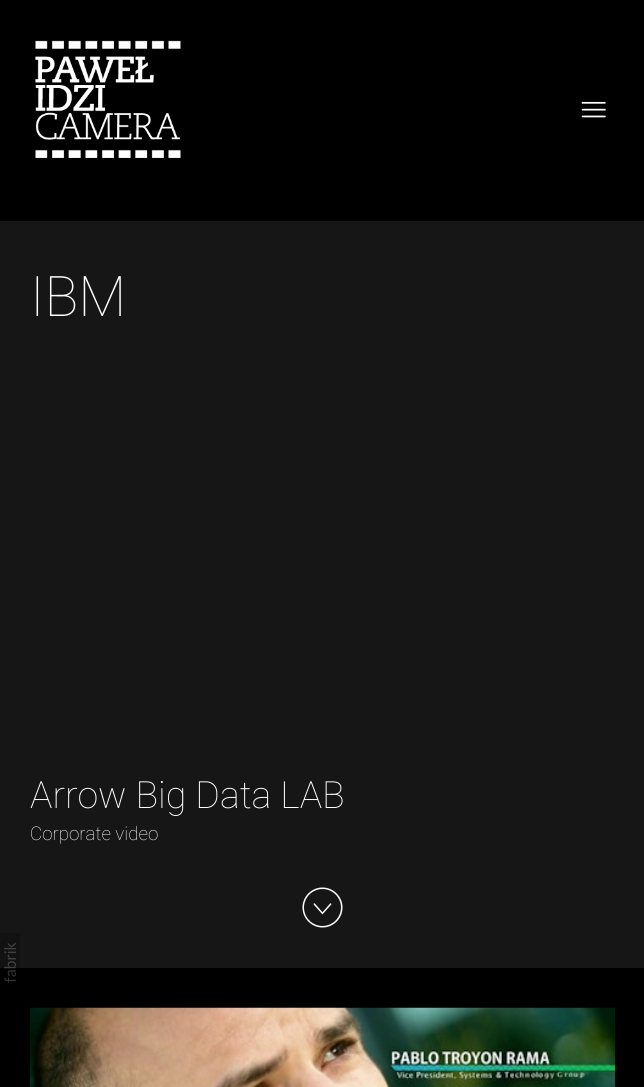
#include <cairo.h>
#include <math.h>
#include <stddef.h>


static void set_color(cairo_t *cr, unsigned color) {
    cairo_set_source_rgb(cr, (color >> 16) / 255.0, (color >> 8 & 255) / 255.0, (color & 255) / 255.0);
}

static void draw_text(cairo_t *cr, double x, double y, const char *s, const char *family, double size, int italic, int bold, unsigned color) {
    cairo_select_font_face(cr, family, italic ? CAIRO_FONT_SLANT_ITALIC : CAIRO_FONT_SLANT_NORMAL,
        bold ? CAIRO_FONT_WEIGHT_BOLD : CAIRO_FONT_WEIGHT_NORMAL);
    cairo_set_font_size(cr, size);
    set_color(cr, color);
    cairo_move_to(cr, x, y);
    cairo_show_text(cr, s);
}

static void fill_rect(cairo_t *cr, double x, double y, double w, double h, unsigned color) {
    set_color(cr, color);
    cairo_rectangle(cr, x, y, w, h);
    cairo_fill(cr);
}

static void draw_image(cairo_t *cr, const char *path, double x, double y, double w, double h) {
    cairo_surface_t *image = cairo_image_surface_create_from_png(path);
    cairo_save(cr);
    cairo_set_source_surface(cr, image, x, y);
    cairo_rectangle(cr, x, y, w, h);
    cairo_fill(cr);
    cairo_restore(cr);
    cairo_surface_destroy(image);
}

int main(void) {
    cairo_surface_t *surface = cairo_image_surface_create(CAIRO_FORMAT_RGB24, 644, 1087);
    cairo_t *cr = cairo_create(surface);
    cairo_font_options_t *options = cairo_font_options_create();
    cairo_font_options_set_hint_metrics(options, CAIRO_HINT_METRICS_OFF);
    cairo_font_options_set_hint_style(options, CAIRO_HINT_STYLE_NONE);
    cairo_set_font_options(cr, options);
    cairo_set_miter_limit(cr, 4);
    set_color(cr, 0x000000);
    cairo_paint(cr);
    draw_image(cr, "assets/img1.png", 35, 40, 146, 118);
    draw_image(cr, "assets/img2.png", 581, 101, 25, 17);
    fill_rect(cr, 0, 221, 644, 747, 0x161616);
    draw_text(cr, 30, 316, "IBM", "Roboto Thin", 56, 0, 0, 0xFFFFFF);
    draw_text(cr, 30, 808, "Arrow Big Data LAB", "Roboto Thin", 37.5, 0, 0, 0xFFFFFF);
    draw_text(cr, 30, 840, "Corporate video", "Roboto Thin", 18.75, 0, 0, 0xFFFFFF);
    draw_image(cr, "assets/img3.png", 302, 887, 41, 41);
    draw_image(cr, "assets/img4.png", 30, 1007, 585, 80);
    draw_image(cr, "assets/img5.png", 0, 933, 20, 50);
    cairo_surface_write_to_png(surface, "output.png");
    cairo_font_options_destroy(options);
    cairo_destroy(cr);
    cairo_surface_destroy(surface);
    return 0;
}
